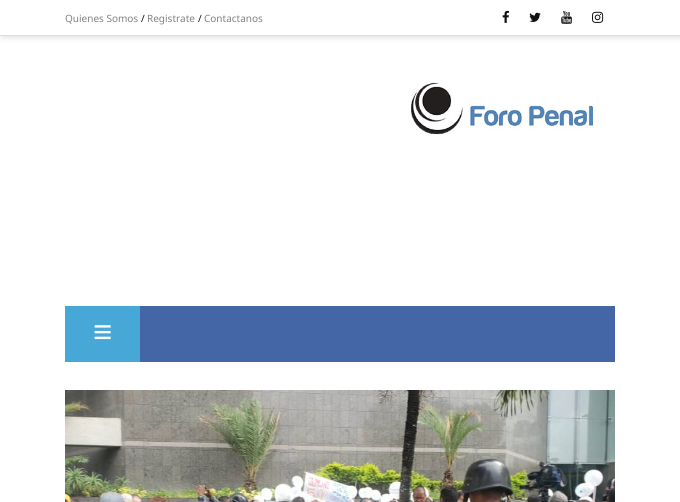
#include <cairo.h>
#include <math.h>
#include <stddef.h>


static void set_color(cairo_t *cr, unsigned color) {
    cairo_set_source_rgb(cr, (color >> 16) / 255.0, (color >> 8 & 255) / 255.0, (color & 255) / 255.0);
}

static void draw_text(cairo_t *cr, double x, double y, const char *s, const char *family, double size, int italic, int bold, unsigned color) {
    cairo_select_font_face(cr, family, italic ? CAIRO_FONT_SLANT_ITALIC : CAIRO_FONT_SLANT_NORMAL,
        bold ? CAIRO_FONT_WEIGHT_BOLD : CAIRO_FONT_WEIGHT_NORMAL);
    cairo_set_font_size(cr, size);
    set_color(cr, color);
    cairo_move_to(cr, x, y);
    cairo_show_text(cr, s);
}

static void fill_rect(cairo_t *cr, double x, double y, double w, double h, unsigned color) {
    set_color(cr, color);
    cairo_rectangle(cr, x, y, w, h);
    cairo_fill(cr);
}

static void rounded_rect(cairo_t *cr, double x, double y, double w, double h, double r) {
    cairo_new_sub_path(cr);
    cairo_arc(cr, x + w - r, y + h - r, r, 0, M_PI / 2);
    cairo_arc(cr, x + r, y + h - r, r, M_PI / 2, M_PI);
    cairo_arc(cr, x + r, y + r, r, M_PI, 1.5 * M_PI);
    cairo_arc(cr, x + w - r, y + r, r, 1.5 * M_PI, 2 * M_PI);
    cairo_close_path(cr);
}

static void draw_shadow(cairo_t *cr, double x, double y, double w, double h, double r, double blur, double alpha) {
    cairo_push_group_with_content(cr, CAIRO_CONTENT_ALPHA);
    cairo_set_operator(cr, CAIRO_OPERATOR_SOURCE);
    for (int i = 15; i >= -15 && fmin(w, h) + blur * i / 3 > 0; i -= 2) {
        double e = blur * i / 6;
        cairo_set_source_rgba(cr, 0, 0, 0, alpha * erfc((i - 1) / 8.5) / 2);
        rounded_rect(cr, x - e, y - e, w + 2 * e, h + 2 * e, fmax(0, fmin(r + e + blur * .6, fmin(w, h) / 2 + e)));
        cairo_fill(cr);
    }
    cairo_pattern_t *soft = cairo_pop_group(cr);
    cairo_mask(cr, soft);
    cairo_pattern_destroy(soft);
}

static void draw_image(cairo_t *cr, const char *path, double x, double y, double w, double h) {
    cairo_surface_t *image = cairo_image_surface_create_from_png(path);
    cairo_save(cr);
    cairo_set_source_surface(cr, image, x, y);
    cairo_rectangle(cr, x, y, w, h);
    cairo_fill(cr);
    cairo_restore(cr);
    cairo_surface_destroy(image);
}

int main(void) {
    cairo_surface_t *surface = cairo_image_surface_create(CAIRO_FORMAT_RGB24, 680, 502);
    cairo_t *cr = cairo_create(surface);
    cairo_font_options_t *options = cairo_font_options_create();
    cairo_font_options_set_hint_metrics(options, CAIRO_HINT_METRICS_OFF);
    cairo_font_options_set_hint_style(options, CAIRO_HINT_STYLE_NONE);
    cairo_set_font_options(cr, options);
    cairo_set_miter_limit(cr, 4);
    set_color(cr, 0xFFFFFF);
    cairo_paint(cr);
    cairo_save(cr);
    cairo_rectangle(cr, 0, 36, 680, 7);
    cairo_clip(cr);
    set_color(cr, 0xE3E3E3);
    draw_shadow(cr, 2, 2, 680, 36, 0, 2.5, 1);
    cairo_restore(cr);
    fill_rect(cr, 0, 35, 680, 1, 0xDDDDDD);
    draw_text(cr, 65, 22, "Quienes Somos", "Noto Sans", 10, 0, 0, 0x858181);
    draw_text(cr, 141, 22, "/", "Noto Sans", 10, 0, 0, 0x111111);
    draw_text(cr, 147, 22, "Registrate", "Noto Sans", 10, 0, 0, 0x858181);
    draw_text(cr, 198, 22, "/", "Noto Sans", 10, 0, 0, 0x111111);
    draw_text(cr, 204, 22, "Contactanos", "Noto Sans", 10, 0, 0, 0x858181);
    draw_image(cr, "assets/img1.png", 502, 10, 7, 13);
    draw_image(cr, "assets/img2.png", 529, 12, 12, 10);
    draw_image(cr, "assets/img3.png", 561, 10, 11, 14);
    draw_image(cr, "assets/img4.png", 592, 11, 12, 12);
    draw_image(cr, "assets/img5.png", 411, 82, 182, 53);
    fill_rect(cr, 140, 306, 475, 56, 0x4465A6);
    fill_rect(cr, 65, 306, 75, 56, 0x47A7D7);
    draw_text(cr, 93, 343, "≡", "Liberation Sans", 33, 0, 0, 0xFFFFFF);
    draw_image(cr, "assets/img6.png", 65, 390, 550, 112);
    cairo_surface_write_to_png(surface, "output.png");
    cairo_font_options_destroy(options);
    cairo_destroy(cr);
    cairo_surface_destroy(surface);
    return 0;
}
